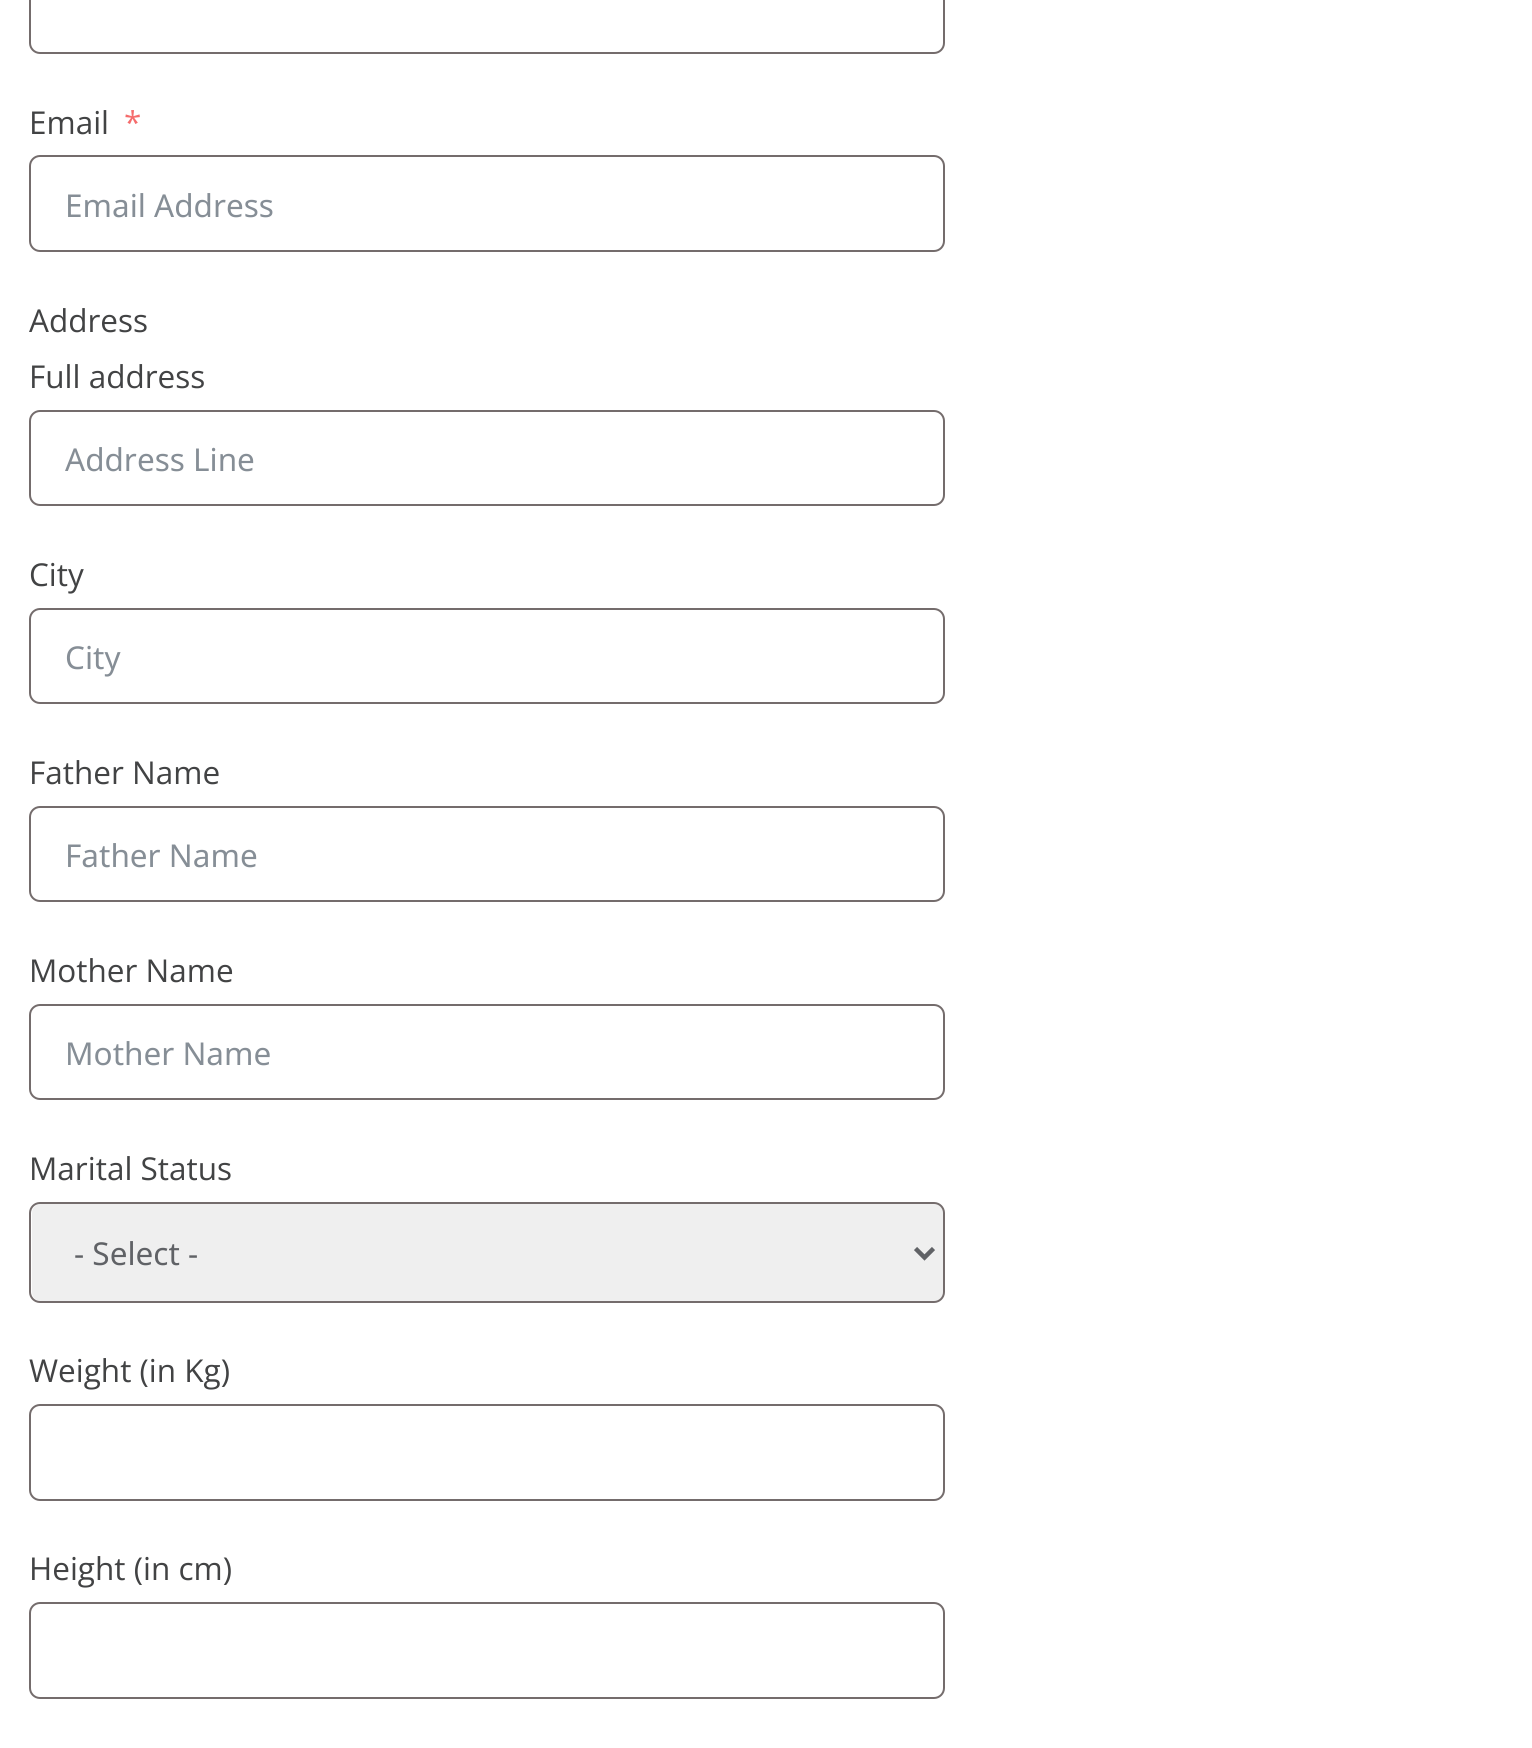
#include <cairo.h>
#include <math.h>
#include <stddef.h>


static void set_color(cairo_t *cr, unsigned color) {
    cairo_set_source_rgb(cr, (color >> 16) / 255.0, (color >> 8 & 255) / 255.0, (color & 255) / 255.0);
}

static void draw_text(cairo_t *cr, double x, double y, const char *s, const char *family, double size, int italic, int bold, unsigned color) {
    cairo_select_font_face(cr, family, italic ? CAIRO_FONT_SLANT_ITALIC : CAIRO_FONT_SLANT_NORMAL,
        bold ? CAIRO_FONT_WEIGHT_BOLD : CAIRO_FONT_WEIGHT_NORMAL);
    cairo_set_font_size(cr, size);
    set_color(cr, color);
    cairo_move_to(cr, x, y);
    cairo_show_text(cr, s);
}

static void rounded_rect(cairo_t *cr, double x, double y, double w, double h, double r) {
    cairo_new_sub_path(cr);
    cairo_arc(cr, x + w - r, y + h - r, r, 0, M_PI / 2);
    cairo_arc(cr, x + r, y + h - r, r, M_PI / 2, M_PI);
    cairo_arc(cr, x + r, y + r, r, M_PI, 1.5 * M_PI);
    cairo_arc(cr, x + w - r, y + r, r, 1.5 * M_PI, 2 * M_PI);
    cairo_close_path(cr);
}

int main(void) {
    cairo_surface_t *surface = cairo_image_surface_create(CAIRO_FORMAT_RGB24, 1532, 1748);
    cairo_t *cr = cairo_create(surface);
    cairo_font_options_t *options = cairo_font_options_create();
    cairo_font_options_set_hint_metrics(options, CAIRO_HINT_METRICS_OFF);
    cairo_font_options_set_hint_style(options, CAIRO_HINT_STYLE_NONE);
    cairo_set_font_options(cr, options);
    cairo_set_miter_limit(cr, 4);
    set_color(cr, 0xFFFFFF);
    cairo_paint(cr);
    rounded_rect(cr, 30, -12, 914, 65, 10);
    set_color(cr, 0x746C6C);
    cairo_stroke(cr);
    draw_text(cr, 29, 134, "Email", "Open Sans", 31.5, 0, 0, 0x424344);
    draw_text(cr, 124, 134, "*", "Open Sans", 31.5, 0, 0, 0xF56C6C);
    rounded_rect(cr, 30, 156, 914, 95, 10);
    set_color(cr, 0x746C6C);
    cairo_stroke(cr);
    draw_text(cr, 65, 217, "Email Address", "Noto Sans", 31.5, 0, 0, 0x868E96);
    draw_text(cr, 29, 332, "Address", "Open Sans", 31.5, 0, 0, 0x424344);
    draw_text(cr, 29, 388, "Full address", "Open Sans", 31.5, 0, 0, 0x424344);
    rounded_rect(cr, 30, 411, 914, 94, 10);
    set_color(cr, 0x746C6C);
    cairo_stroke(cr);
    draw_text(cr, 65, 471, "Address Line", "Noto Sans", 31.5, 0, 0, 0x868E96);
    draw_text(cr, 29, 586, "City", "Open Sans", 31.5, 0, 0, 0x424344);
    rounded_rect(cr, 30, 609, 914, 94, 10);
    set_color(cr, 0x746C6C);
    cairo_stroke(cr);
    draw_text(cr, 65, 669, "City", "Noto Sans", 31.5, 0, 0, 0x868E96);
    draw_text(cr, 29, 784, "Father Name", "Open Sans", 31.5, 0, 0, 0x424344);
    rounded_rect(cr, 30, 807, 914, 94, 10);
    set_color(cr, 0x746C6C);
    cairo_stroke(cr);
    draw_text(cr, 65, 867, "Father Name", "Noto Sans", 31.5, 0, 0, 0x868E96);
    draw_text(cr, 29, 982, "Mother Name", "Open Sans", 31.5, 0, 0, 0x424344);
    rounded_rect(cr, 30, 1005, 914, 94, 10);
    set_color(cr, 0x746C6C);
    cairo_stroke(cr);
    draw_text(cr, 65, 1065, "Mother Name", "Noto Sans", 31.5, 0, 0, 0x868E96);
    draw_text(cr, 29, 1180, "Marital Status", "Open Sans", 31.5, 0, 0, 0x424344);
    set_color(cr, 0xEFEFEF);
    rounded_rect(cr, 32, 1204, 911, 97, 9);
    cairo_fill(cr);
    rounded_rect(cr, 30, 1203, 914, 99, 10);
    set_color(cr, 0x746C6C);
    cairo_stroke(cr);
    cairo_new_path(cr);
    cairo_move_to(cr, 915.5, 1248.5);
    cairo_line_to(cr, 924.5, 1257.5);
    cairo_line_to(cr, 933.5, 1248.5);
    set_color(cr, 0x606266);
    cairo_set_line_width(cr, 4.5);
    cairo_stroke(cr);
    draw_text(cr, 74, 1265, "- Select -", "Noto Sans", 31.5, 0, 0, 0x606266);
    draw_text(cr, 29, 1382, "Weight (in Kg)", "Open Sans", 31.5, 0, 0, 0x424344);
    rounded_rect(cr, 30, 1405, 914, 95, 10);
    set_color(cr, 0x746C6C);
    cairo_set_line_width(cr, 2);
    cairo_stroke(cr);
    draw_text(cr, 29, 1580, "Height (in cm)", "Open Sans", 31.5, 0, 0, 0x424344);
    rounded_rect(cr, 30, 1603, 914, 95, 10);
    set_color(cr, 0x746C6C);
    cairo_stroke(cr);
    cairo_surface_write_to_png(surface, "output.png");
    cairo_font_options_destroy(options);
    cairo_destroy(cr);
    cairo_surface_destroy(surface);
    return 0;
}
